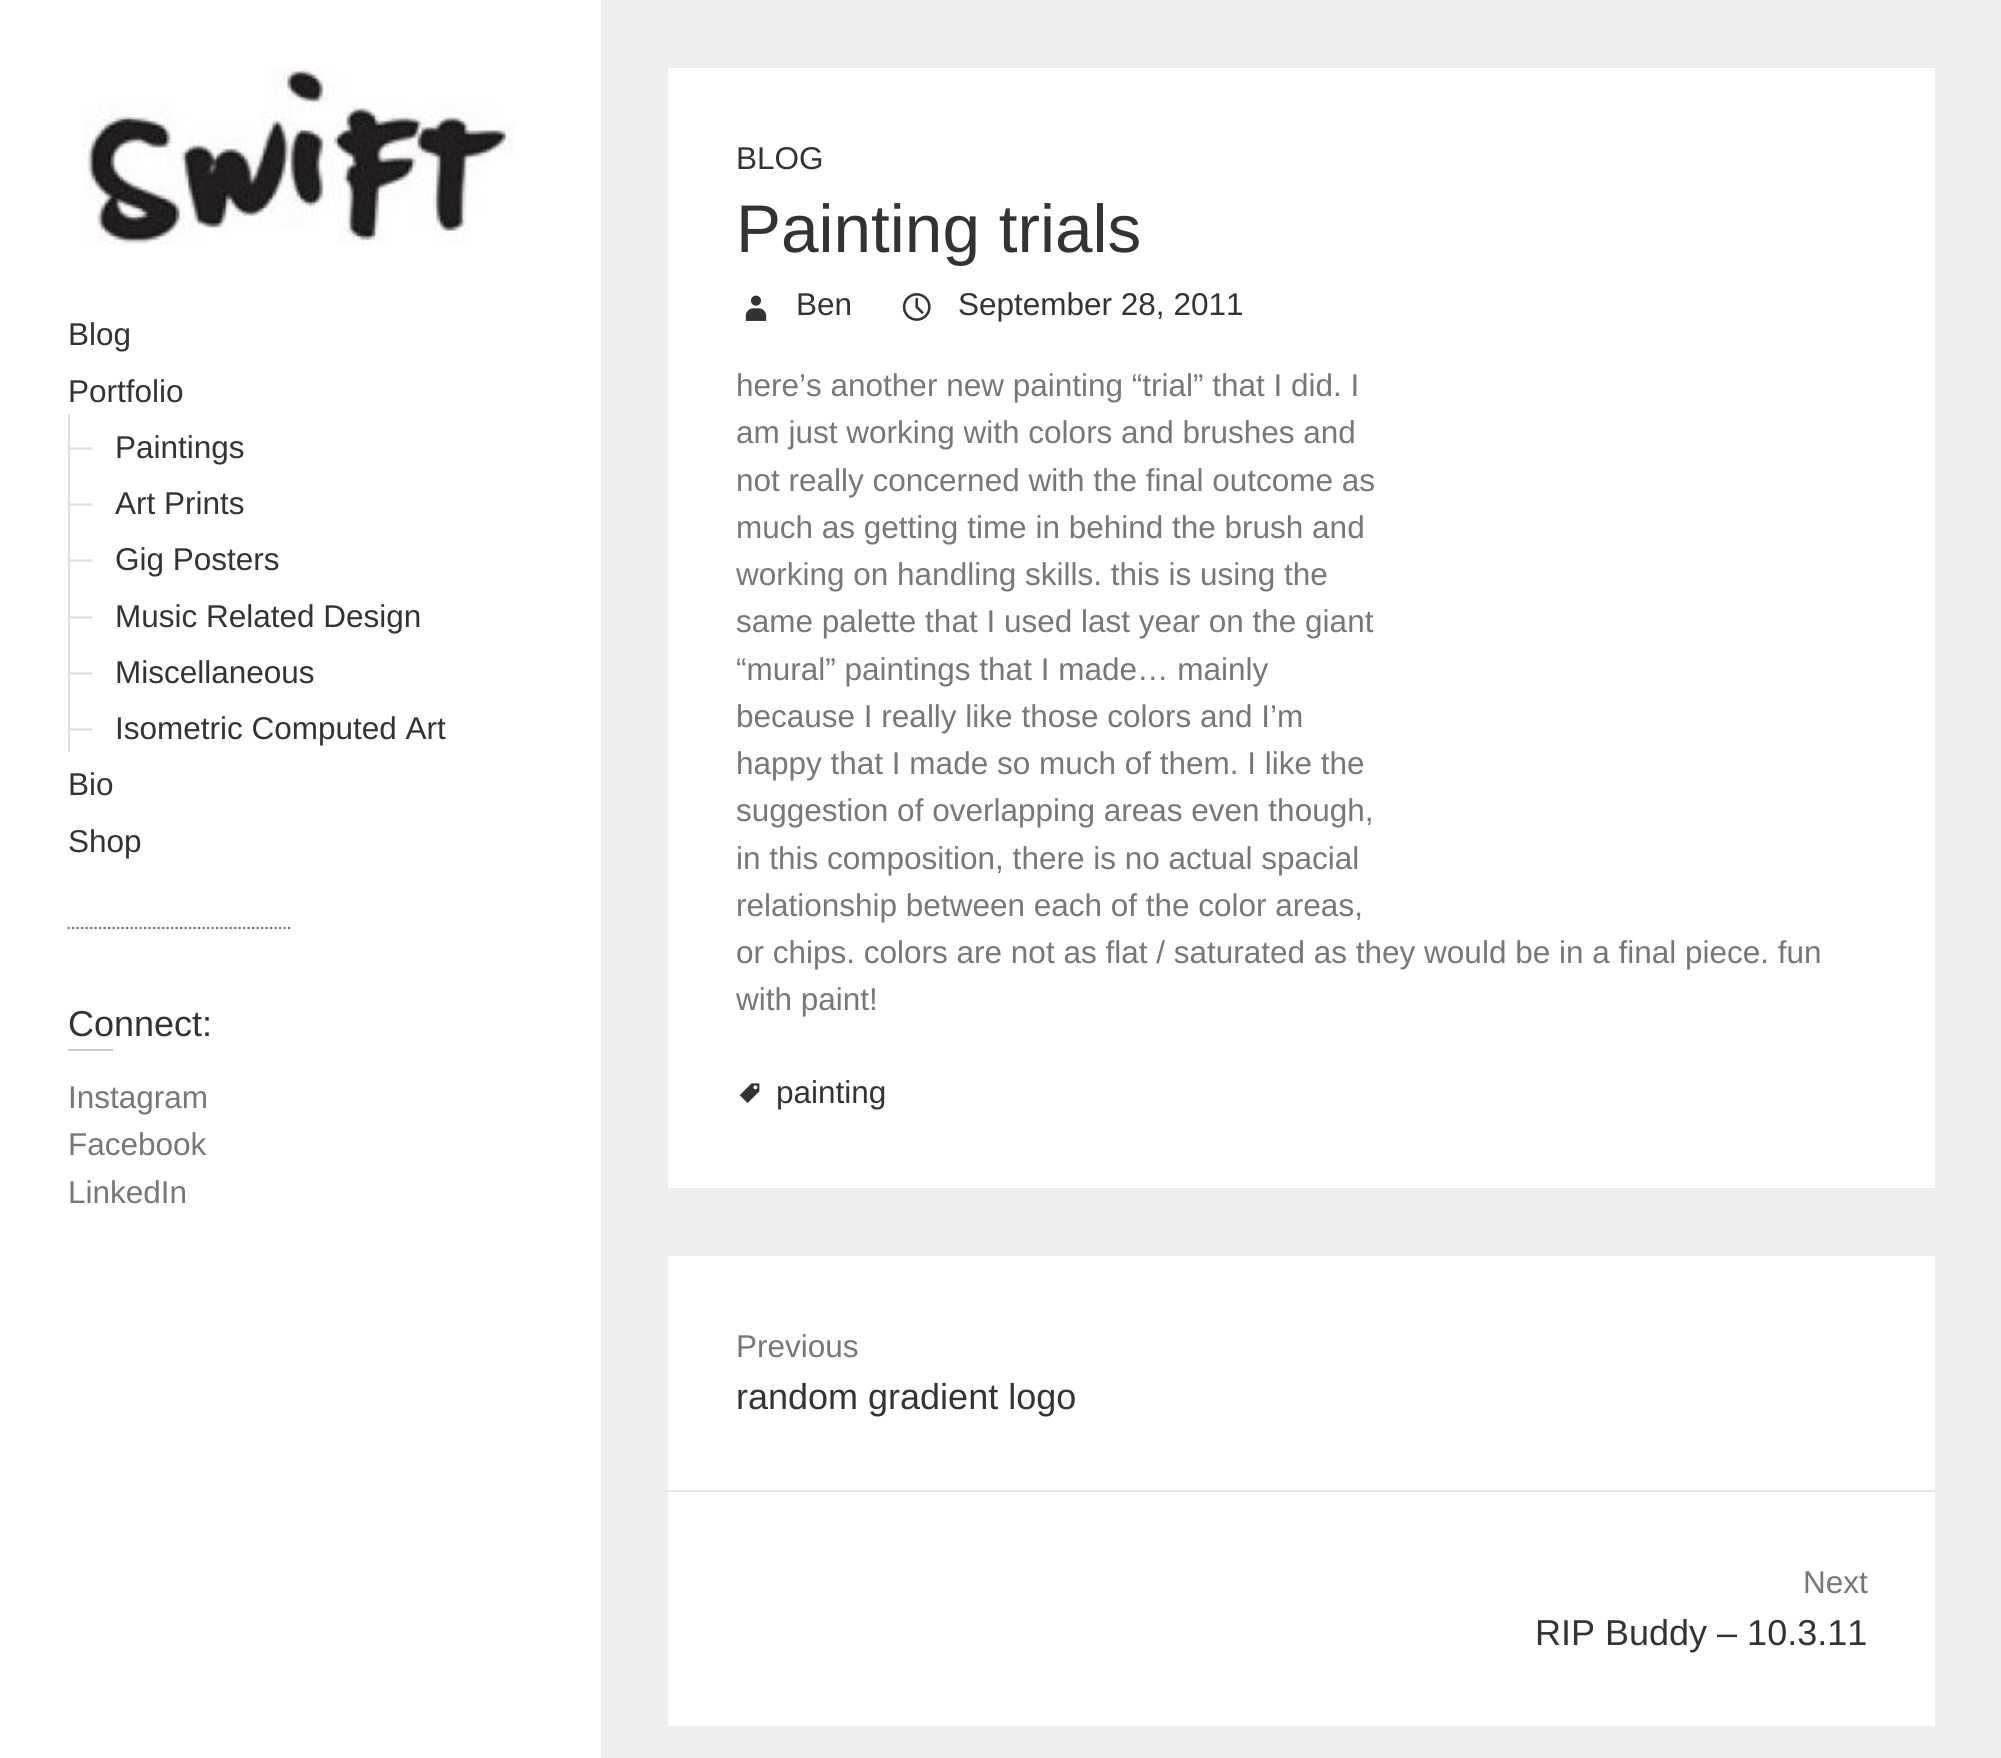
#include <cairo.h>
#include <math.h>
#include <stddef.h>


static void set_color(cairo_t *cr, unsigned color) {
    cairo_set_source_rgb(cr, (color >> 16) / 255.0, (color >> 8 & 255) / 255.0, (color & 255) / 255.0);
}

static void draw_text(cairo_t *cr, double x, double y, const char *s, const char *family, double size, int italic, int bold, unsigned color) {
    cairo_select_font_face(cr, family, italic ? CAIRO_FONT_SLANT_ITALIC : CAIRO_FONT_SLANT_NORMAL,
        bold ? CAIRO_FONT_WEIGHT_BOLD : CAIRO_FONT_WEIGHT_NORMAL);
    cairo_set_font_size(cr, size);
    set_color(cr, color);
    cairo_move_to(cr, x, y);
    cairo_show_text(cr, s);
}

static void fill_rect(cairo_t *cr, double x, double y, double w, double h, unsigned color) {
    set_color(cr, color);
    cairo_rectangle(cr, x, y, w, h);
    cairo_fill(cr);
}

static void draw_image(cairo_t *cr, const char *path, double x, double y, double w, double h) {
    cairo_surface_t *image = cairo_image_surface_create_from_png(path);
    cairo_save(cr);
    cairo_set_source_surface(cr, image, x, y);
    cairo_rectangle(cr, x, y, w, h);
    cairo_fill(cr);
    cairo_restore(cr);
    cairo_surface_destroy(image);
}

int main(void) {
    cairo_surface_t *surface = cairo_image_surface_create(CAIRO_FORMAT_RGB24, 2001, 1758);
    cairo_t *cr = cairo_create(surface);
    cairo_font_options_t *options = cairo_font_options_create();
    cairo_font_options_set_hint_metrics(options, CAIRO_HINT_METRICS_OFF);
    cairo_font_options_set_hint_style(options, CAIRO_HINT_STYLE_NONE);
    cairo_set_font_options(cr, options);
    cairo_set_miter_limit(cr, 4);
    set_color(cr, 0xEEEEEE);
    cairo_paint(cr);
    fill_rect(cr, 0, 0, 601, 1758, 0xFFFFFF);
    fill_rect(cr, 668, 68, 1267, 1120, 0xFFFFFF);
    draw_text(cr, 736, 169, "BLOG", "Liberation Sans", 31.5, 0, 0, 0x333333);
    draw_text(cr, 736, 252, "Painting trials", "Liberation Sans", 67.5, 0, 0, 0x333333);
    draw_image(cr, "assets/img1.png", 745, 295, 22, 26);
    draw_text(cr, 796, 315, "Ben", "Liberation Sans", 31.5, 0, 0, 0x333333);
    draw_image(cr, "assets/img2.png", 902, 293, 29, 28);
    draw_text(cr, 958, 315, "September 28, 2011", "Liberation Sans", 31.5, 0, 0, 0x333333);
    draw_text(cr, 736, 396, "here’s another new painting “trial” that I did. I", "Liberation Sans", 31.5, 0, 0, 0x777777);
    draw_text(cr, 736, 443, "am just working with colors and brushes and", "Liberation Sans", 31.5, 0, 0, 0x777777);
    draw_text(cr, 736, 491, "not really concerned with the final outcome as", "Liberation Sans", 31.5, 0, 0, 0x777777);
    draw_text(cr, 736, 538, "much as getting time in behind the brush and", "Liberation Sans", 31.5, 0, 0, 0x777777);
    draw_text(cr, 736, 585, "working on handling skills. this is using the", "Liberation Sans", 31.5, 0, 0, 0x777777);
    draw_text(cr, 736, 632, "same palette that I used last year on the giant", "Liberation Sans", 31.5, 0, 0, 0x777777);
    draw_text(cr, 736, 680, "“mural” paintings that I made… mainly", "Liberation Sans", 31.5, 0, 0, 0x777777);
    draw_text(cr, 736, 727, "because I really like those colors and I’m", "Liberation Sans", 31.5, 0, 0, 0x777777);
    draw_text(cr, 736, 774, "happy that I made so much of them. I like the", "Liberation Sans", 31.5, 0, 0, 0x777777);
    draw_text(cr, 736, 821, "suggestion of overlapping areas even though,", "Liberation Sans", 31.5, 0, 0, 0x777777);
    draw_text(cr, 736, 869, "in this composition, there is no actual spacial", "Liberation Sans", 31.5, 0, 0, 0x777777);
    draw_text(cr, 736, 916, "relationship between each of the color areas,", "Liberation Sans", 31.5, 0, 0, 0x777777);
    draw_text(cr, 736, 963, "or chips. colors are not as flat / saturated as they would be in a final piece. fun", "Liberation Sans", 31.5, 0, 0, 0x777777);
    draw_text(cr, 736, 1010, "with paint!", "Liberation Sans", 31.5, 0, 0, 0x777777);
    draw_image(cr, "assets/img3.png", 739, 1083, 21, 20);
    draw_text(cr, 776, 1103, "painting", "Liberation Sans", 31.5, 0, 0, 0x333333);
    fill_rect(cr, 668, 1256, 1267, 470, 0xFFFFFF);
    fill_rect(cr, 668, 1490, 1267, 2, 0xE6E6E6);
    draw_text(cr, 736, 1357, "Previous", "Liberation Sans", 31.5, 0, 0, 0x777777);
    draw_text(cr, 736, 1409, "random gradient logo", "Liberation Sans", 36, 0, 0, 0x333333);
    draw_text(cr, 1803, 1593, "Next", "Liberation Sans", 31.5, 0, 0, 0x777777);
    draw_text(cr, 1535, 1645, "RIP Buddy – 10.3.11", "Liberation Sans", 36, 0, 0, 0x333333);
    draw_image(cr, "assets/img4.png", 83, 67, 432, 178);
    draw_text(cr, 68, 345, "Blog", "Liberation Sans", 31.5, 0, 0, 0x333333);
    draw_text(cr, 68, 402, "Portfolio", "Liberation Sans", 31.5, 0, 0, 0x333333);
    fill_rect(cr, 68, 414, 2, 338, 0xDDDDDD);
    draw_text(cr, 70, 458, "─", "Liberation Sans", 31.5, 0, 0, 0xDDDDDD);
    draw_text(cr, 115, 458, "Paintings", "Liberation Sans", 31.5, 0, 0, 0x333333);
    draw_text(cr, 70, 514, "─", "Liberation Sans", 31.5, 0, 0, 0xDDDDDD);
    draw_text(cr, 115, 514, "Art Prints", "Liberation Sans", 31.5, 0, 0, 0x333333);
    draw_text(cr, 70, 570, "─", "Liberation Sans", 31.5, 0, 0, 0xDDDDDD);
    draw_text(cr, 115, 570, "Gig Posters", "Liberation Sans", 31.5, 0, 0, 0x333333);
    draw_text(cr, 70, 627, "─", "Liberation Sans", 31.5, 0, 0, 0xDDDDDD);
    draw_text(cr, 115, 627, "Music Related Design", "Liberation Sans", 31.5, 0, 0, 0x333333);
    draw_text(cr, 70, 683, "─", "Liberation Sans", 31.5, 0, 0, 0xDDDDDD);
    draw_text(cr, 115, 683, "Miscellaneous", "Liberation Sans", 31.5, 0, 0, 0x333333);
    draw_text(cr, 70, 739, "─", "Liberation Sans", 31.5, 0, 0, 0xDDDDDD);
    draw_text(cr, 115, 739, "Isometric Computed Art", "Liberation Sans", 31.5, 0, 0, 0x333333);
    draw_text(cr, 68, 795, "Bio", "Liberation Sans", 31.5, 0, 0, 0x333333);
    draw_text(cr, 68, 852, "Shop", "Liberation Sans", 31.5, 0, 0, 0x333333);
    cairo_new_path(cr);
    cairo_move_to(cr, 67.5, 928);
    cairo_line_to(cr, 292.5, 928);
    set_color(cr, 0x777777);
    cairo_set_line_width(cr, 2.2);
    cairo_set_dash(cr, (double[]){2.25, 2.25}, 2, 0);
    cairo_stroke(cr);
    draw_text(cr, 68, 1036, "Connect:", "Liberation Sans", 36, 0, 0, 0x333333);
    fill_rect(cr, 68, 1049, 45, 2, 0xCCCCCC);
    draw_text(cr, 68, 1108, "Instagram", "Liberation Sans", 31.5, 0, 0, 0x777777);
    draw_text(cr, 68, 1155, "Facebook", "Liberation Sans", 31.5, 0, 0, 0x777777);
    draw_text(cr, 68, 1203, "LinkedIn", "Liberation Sans", 31.5, 0, 0, 0x777777);
    cairo_surface_write_to_png(surface, "output.png");
    cairo_font_options_destroy(options);
    cairo_destroy(cr);
    cairo_surface_destroy(surface);
    return 0;
}
